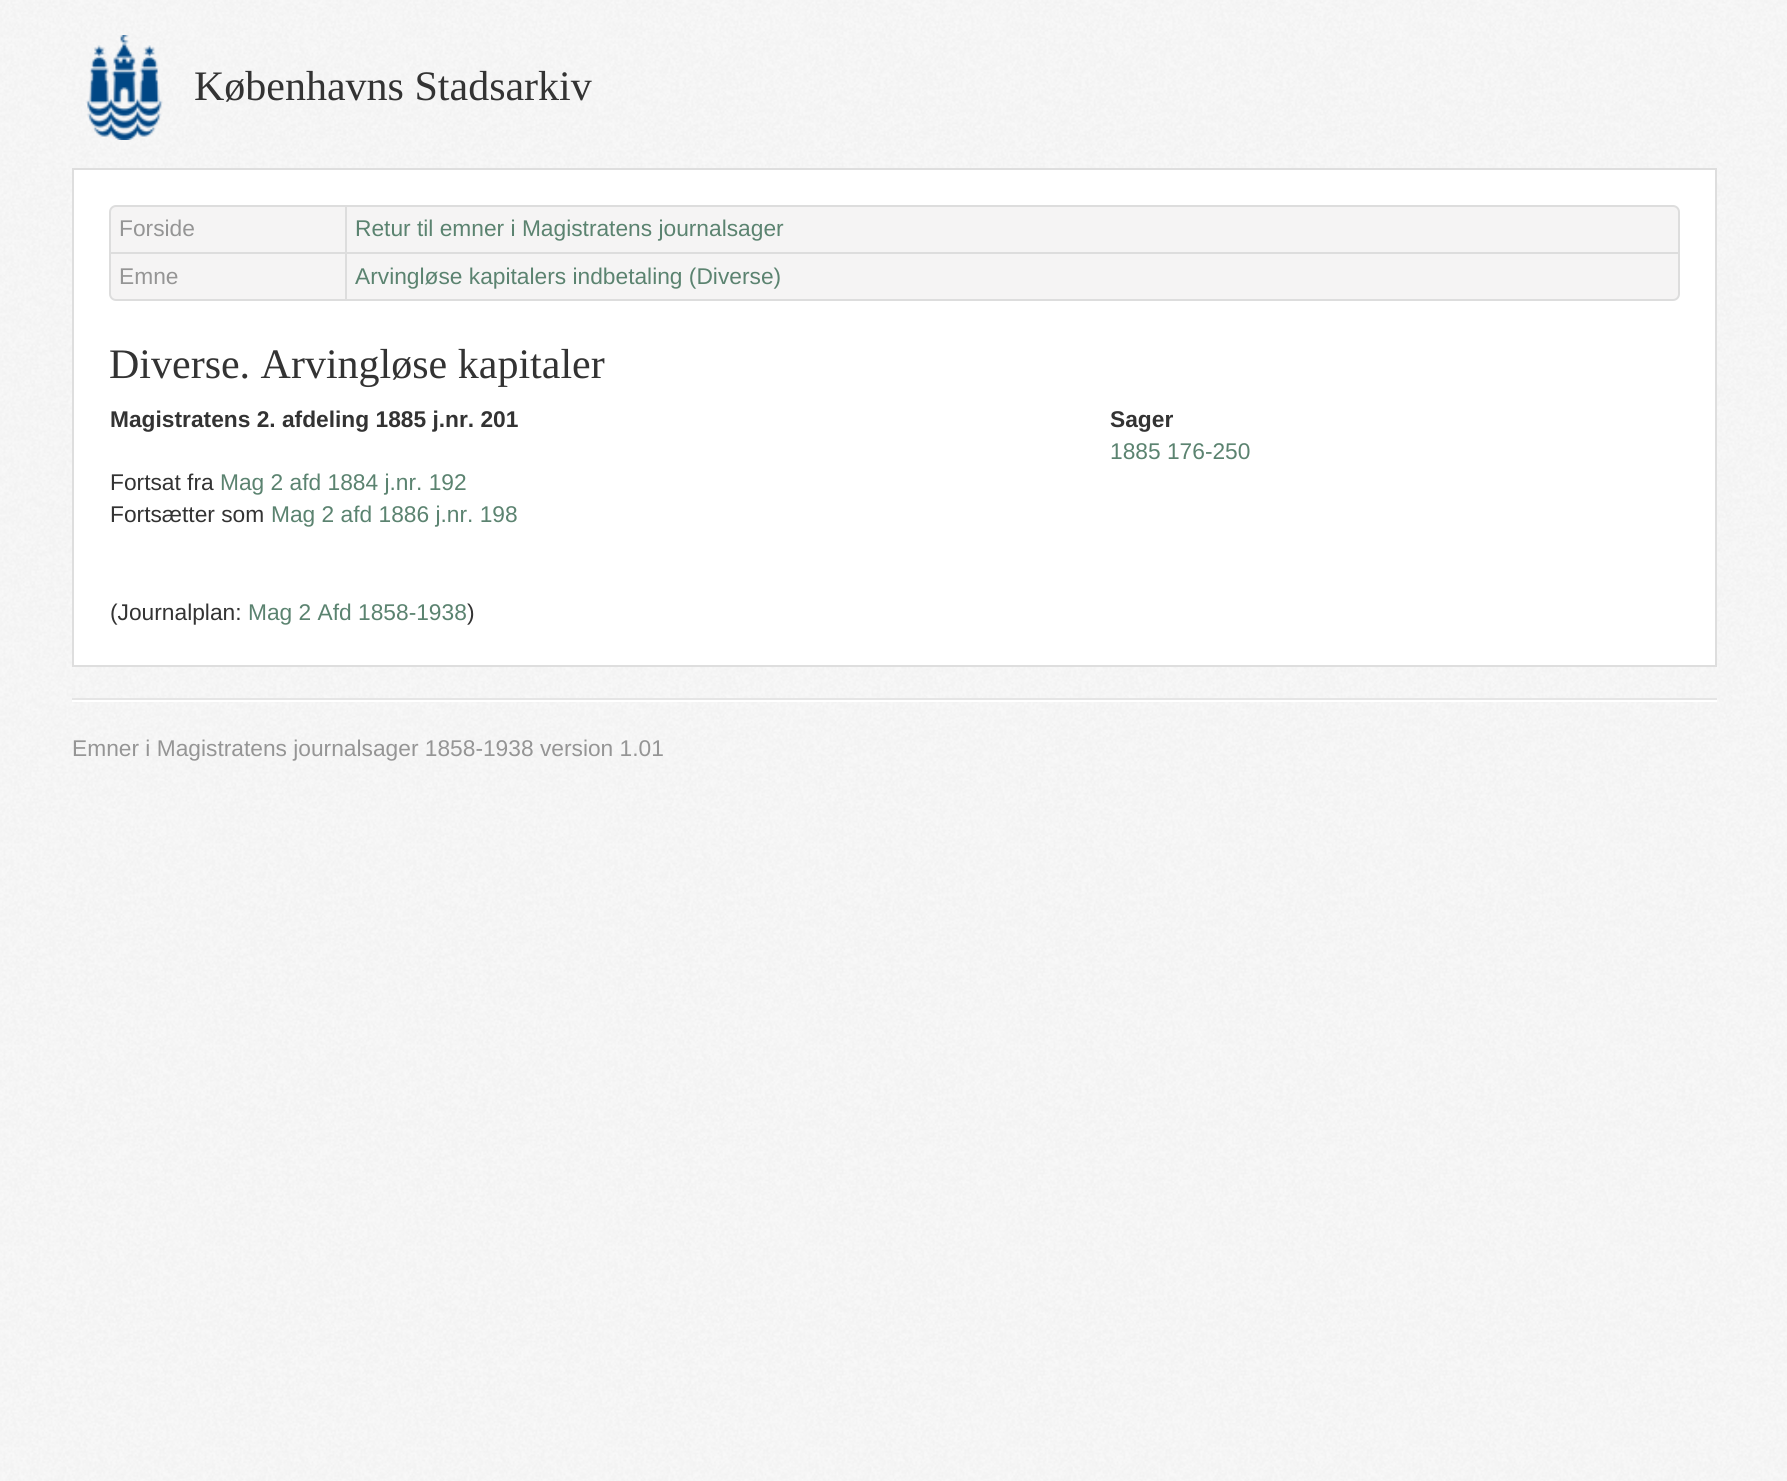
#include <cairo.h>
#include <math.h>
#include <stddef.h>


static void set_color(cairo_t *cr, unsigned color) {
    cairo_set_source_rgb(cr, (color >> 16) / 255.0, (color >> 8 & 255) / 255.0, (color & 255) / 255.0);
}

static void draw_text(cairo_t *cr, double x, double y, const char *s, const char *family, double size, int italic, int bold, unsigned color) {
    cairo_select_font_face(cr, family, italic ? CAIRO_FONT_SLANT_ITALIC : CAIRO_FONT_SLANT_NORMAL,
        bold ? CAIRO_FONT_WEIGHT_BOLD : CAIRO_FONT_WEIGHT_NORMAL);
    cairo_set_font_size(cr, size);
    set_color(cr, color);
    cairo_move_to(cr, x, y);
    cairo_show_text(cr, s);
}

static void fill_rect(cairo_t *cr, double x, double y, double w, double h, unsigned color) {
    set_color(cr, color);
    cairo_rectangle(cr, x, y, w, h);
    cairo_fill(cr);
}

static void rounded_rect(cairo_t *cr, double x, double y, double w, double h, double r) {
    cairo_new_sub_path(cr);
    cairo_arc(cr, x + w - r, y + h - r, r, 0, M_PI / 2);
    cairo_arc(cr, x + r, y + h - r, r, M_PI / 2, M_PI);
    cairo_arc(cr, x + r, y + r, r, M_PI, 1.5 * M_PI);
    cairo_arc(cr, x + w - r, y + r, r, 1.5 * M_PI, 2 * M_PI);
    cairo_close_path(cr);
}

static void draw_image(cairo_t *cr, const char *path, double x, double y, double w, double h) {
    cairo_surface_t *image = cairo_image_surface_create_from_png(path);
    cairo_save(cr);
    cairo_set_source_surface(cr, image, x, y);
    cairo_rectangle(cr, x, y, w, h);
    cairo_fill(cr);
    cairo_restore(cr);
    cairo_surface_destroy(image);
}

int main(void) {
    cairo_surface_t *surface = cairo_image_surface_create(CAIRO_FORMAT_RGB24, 1787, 1481);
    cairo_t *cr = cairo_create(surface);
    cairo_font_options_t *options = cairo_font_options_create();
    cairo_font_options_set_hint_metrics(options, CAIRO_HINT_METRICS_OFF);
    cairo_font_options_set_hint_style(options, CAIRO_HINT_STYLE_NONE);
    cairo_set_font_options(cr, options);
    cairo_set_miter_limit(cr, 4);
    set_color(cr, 0xFFFFFF);
    cairo_paint(cr);
    draw_image(cr, "assets/img1.png", 0, 0, 1787, 1481);
    draw_image(cr, "assets/img2.png", 85, 35, 78, 105);
    draw_text(cr, 194, 100, "Københavns Stadsarkiv", "Liberation Serif", 42, 0, 0, 0x333333);
    set_color(cr, 0xFFFFFF);
    cairo_rectangle(cr, 73, 169, 1643, 497);
    cairo_fill_preserve(cr);
    set_color(cr, 0xDEDEDE);
    cairo_stroke(cr);
    set_color(cr, 0xF5F4F4);
    rounded_rect(cr, 110, 206, 1569, 94, 6);
    cairo_fill_preserve(cr);
    set_color(cr, 0xDDDDDD);
    cairo_stroke(cr);
    draw_text(cr, 119, 236, "Forside", "Liberation Sans", 22.75, 0, 0, 0x959595);
    fill_rect(cr, 345, 207, 2, 45, 0xDDDDDD);
    draw_text(cr, 355, 236, "Retur til emner i Magistratens journalsager", "Liberation Sans", 22.75, 0, 0, 0x5B8370);
    fill_rect(cr, 110, 252, 1568, 2, 0xDDDDDD);
    draw_text(cr, 119, 284, "Emne", "Liberation Sans", 22.75, 0, 0, 0x959595);
    fill_rect(cr, 345, 252, 2, 47, 0xDDDDDD);
    draw_text(cr, 355, 284, "Arvingløse kapitalers indbetaling (Diverse)", "Liberation Sans", 22.75, 0, 0, 0x5B8370);
    draw_text(cr, 109, 378, "Diverse. Arvingløse kapitaler", "Liberation Serif", 42, 0, 0, 0x333333);
    draw_text(cr, 110, 427, "Magistratens 2. afdeling 1885 j.nr. 201", "Liberation Sans", 22.75, 0, 1, 0x333333);
    draw_text(cr, 110, 490, "Fortsat fra", "Liberation Sans", 22.75, 0, 0, 0x333333);
    draw_text(cr, 220, 490, "Mag 2 afd 1884 j.nr. 192", "Liberation Sans", 22.75, 0, 0, 0x5B8370);
    draw_text(cr, 110, 522, "Fortsætter som", "Liberation Sans", 22.75, 0, 0, 0x333333);
    draw_text(cr, 271, 522, "Mag 2 afd 1886 j.nr. 198", "Liberation Sans", 22.75, 0, 0, 0x5B8370);
    draw_text(cr, 1110, 427, "Sager", "Liberation Sans", 22.75, 0, 1, 0x333333);
    draw_text(cr, 1110, 459, "1885 176-250", "Liberation Sans", 22.75, 0, 0, 0x5B8370);
    draw_text(cr, 110, 620, "(Journalplan:", "Liberation Sans", 22.75, 0, 0, 0x333333);
    draw_text(cr, 248, 620, "Mag 2 Afd 1858-1938", "Liberation Sans", 22.75, 0, 0, 0x5B8370);
    draw_text(cr, 467, 620, ")", "Liberation Sans", 22.75, 0, 0, 0x333333);
    fill_rect(cr, 72, 698, 1645, 2, 0xE5E5E5);
    fill_rect(cr, 72, 700, 1645, 2, 0xFFFFFF);
    draw_text(cr, 72, 756, "Emner i Magistratens journalsager 1858-1938 version 1.01", "Liberation Sans", 22.75, 0, 0, 0x959595);
    cairo_surface_write_to_png(surface, "output.png");
    cairo_font_options_destroy(options);
    cairo_destroy(cr);
    cairo_surface_destroy(surface);
    return 0;
}
